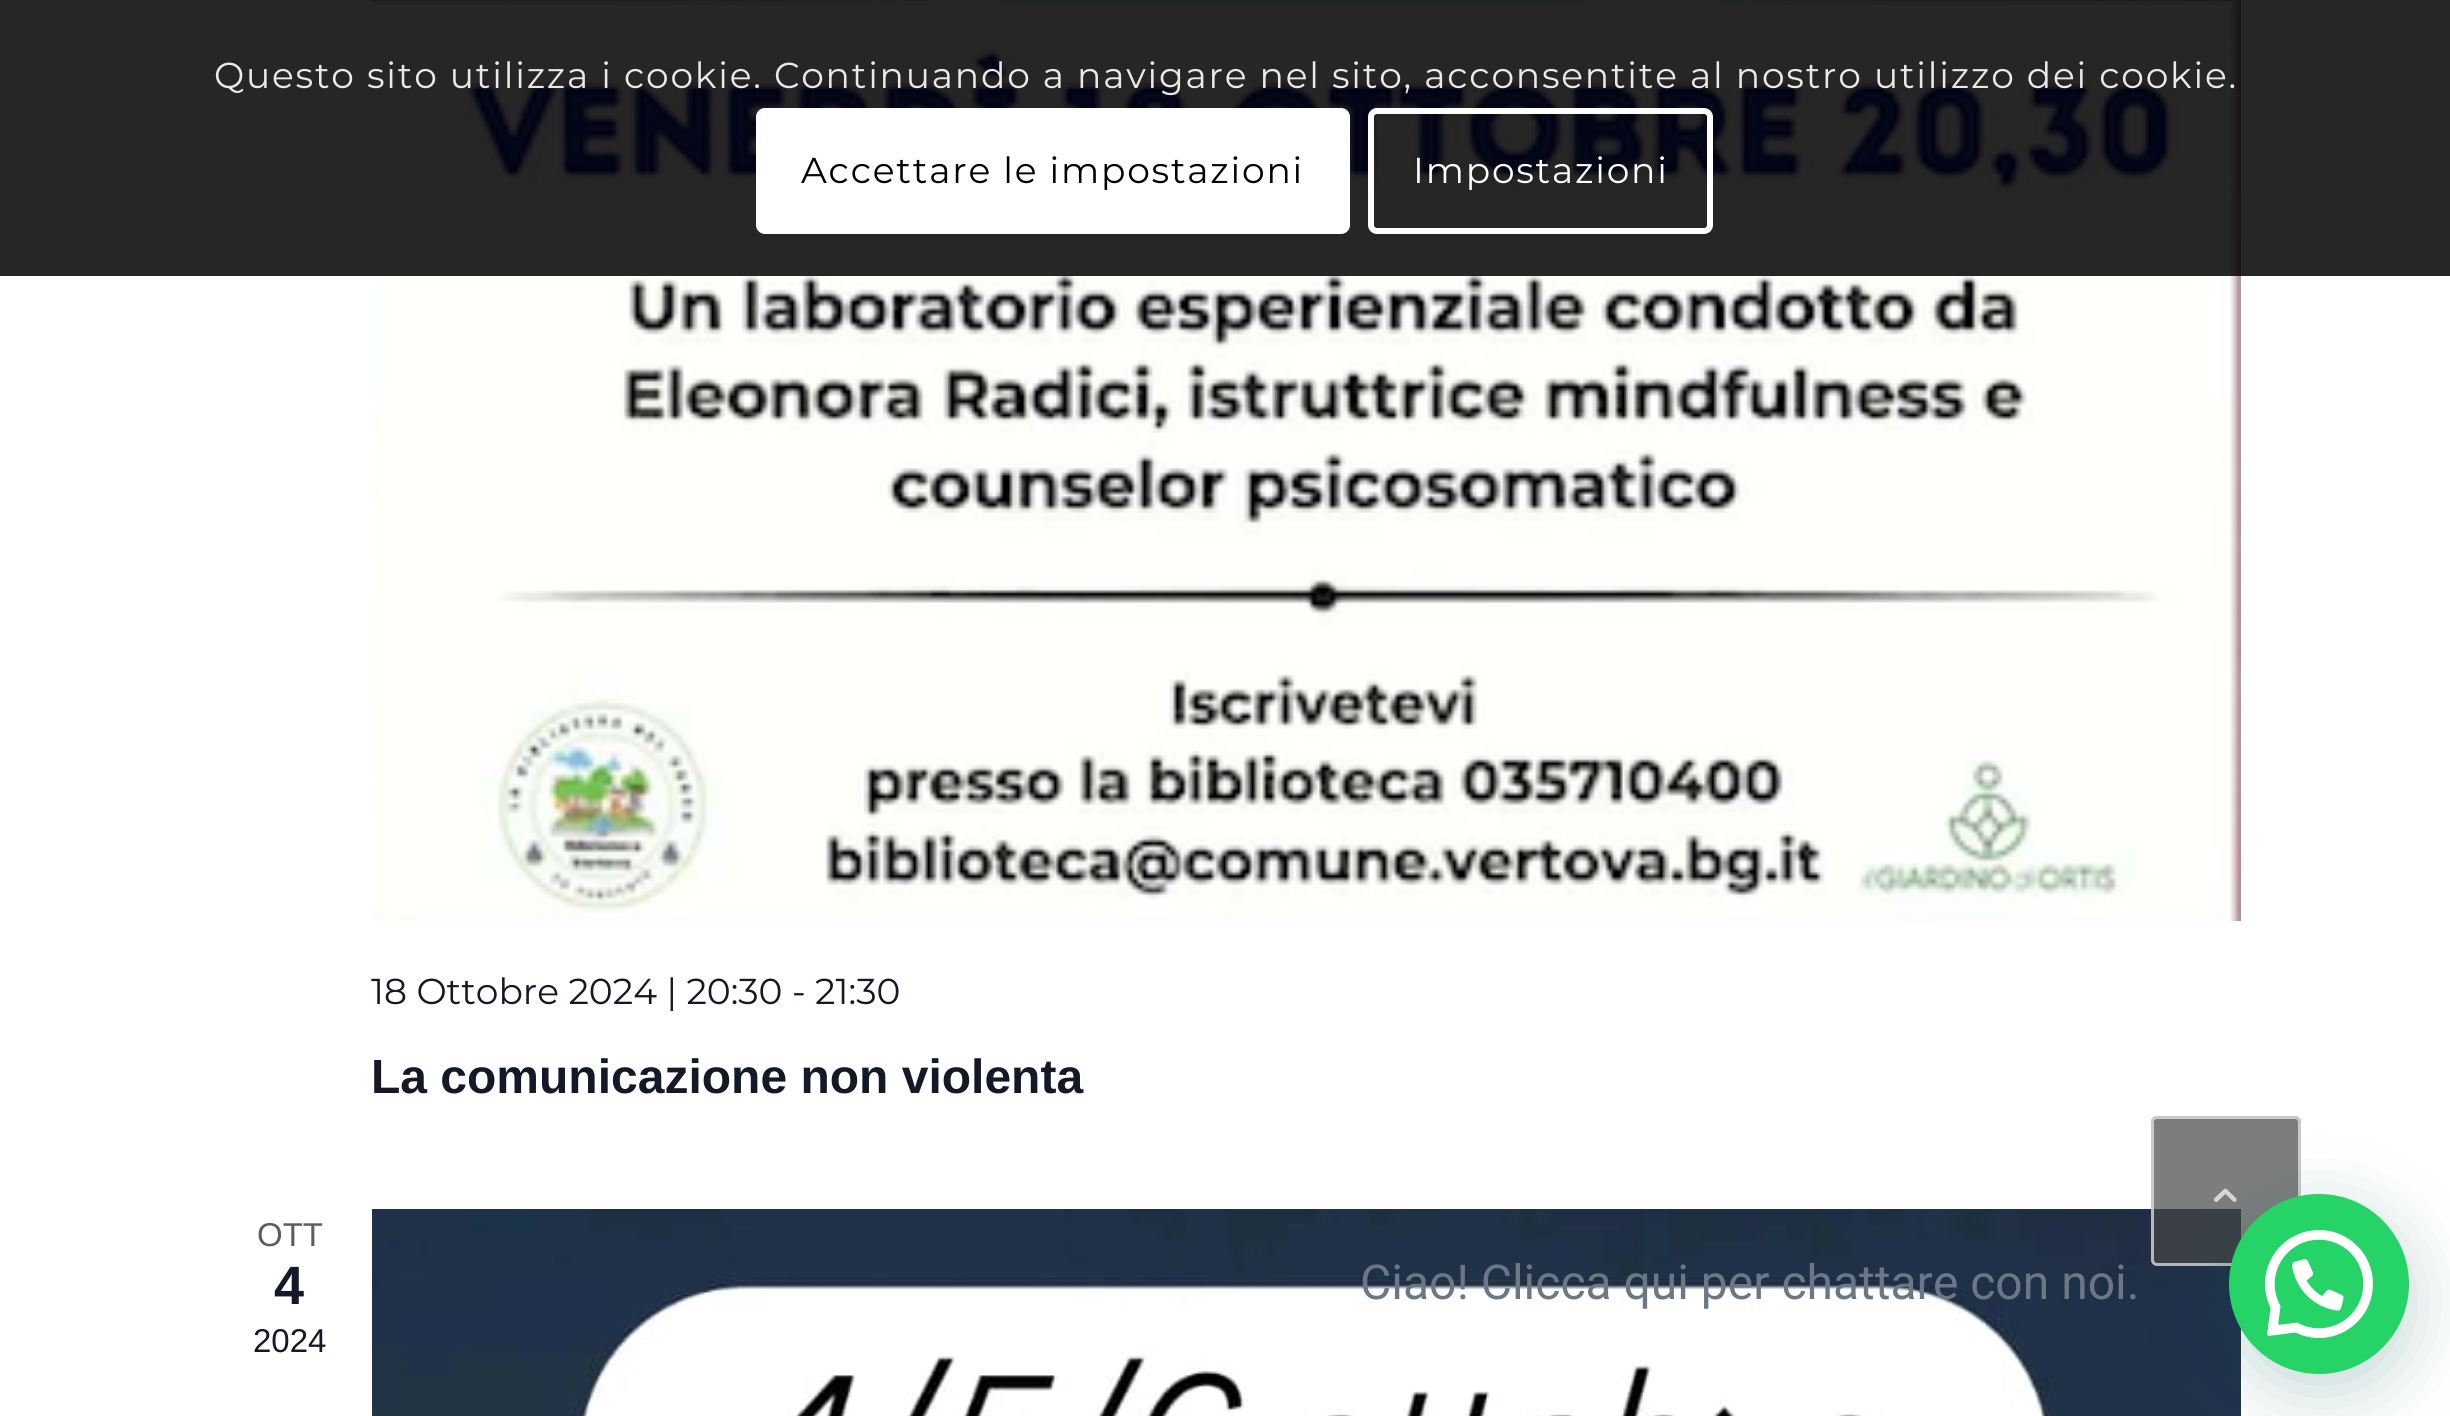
#include <cairo.h>
#include <math.h>
#include <stddef.h>


static void set_color(cairo_t *cr, unsigned color) {
    cairo_set_source_rgb(cr, (color >> 16) / 255.0, (color >> 8 & 255) / 255.0, (color & 255) / 255.0);
}

static void draw_text(cairo_t *cr, double x, double y, const char *s, const char *family, double size, int italic, int bold, unsigned color) {
    cairo_select_font_face(cr, family, italic ? CAIRO_FONT_SLANT_ITALIC : CAIRO_FONT_SLANT_NORMAL,
        bold ? CAIRO_FONT_WEIGHT_BOLD : CAIRO_FONT_WEIGHT_NORMAL);
    cairo_set_font_size(cr, size);
    set_color(cr, color);
    cairo_move_to(cr, x, y);
    cairo_show_text(cr, s);
}

static void draw_spaced(cairo_t *cr, double x, double y, const char *s, double letter, double word) {
    cairo_move_to(cr, x, y);
    while (*s) {
        char ch[5] = {0};
        int n = 0;
        do ch[n++] = *s++; while ((*s & 0xC0) == 0x80);
        cairo_show_text(cr, ch);
        cairo_rel_move_to(cr, letter + word * (*ch == ' '), 0);
    }
}

static void rounded_rect(cairo_t *cr, double x, double y, double w, double h, double r) {
    cairo_new_sub_path(cr);
    cairo_arc(cr, x + w - r, y + h - r, r, 0, M_PI / 2);
    cairo_arc(cr, x + r, y + h - r, r, M_PI / 2, M_PI);
    cairo_arc(cr, x + r, y + r, r, M_PI, 1.5 * M_PI);
    cairo_arc(cr, x + w - r, y + r, r, 1.5 * M_PI, 2 * M_PI);
    cairo_close_path(cr);
}

static void draw_shadow(cairo_t *cr, double x, double y, double w, double h, double r, double blur, double alpha) {
    cairo_push_group_with_content(cr, CAIRO_CONTENT_ALPHA);
    cairo_set_operator(cr, CAIRO_OPERATOR_SOURCE);
    for (int i = 15; i >= -15 && fmin(w, h) + blur * i / 3 > 0; i -= 2) {
        double e = blur * i / 6;
        cairo_set_source_rgba(cr, 0, 0, 0, alpha * erfc((i - 1) / 8.5) / 2);
        rounded_rect(cr, x - e, y - e, w + 2 * e, h + 2 * e, fmax(0, fmin(r + e + blur * .6, fmin(w, h) / 2 + e)));
        cairo_fill(cr);
    }
    cairo_pattern_t *soft = cairo_pop_group(cr);
    cairo_mask(cr, soft);
    cairo_pattern_destroy(soft);
}

static void draw_image(cairo_t *cr, const char *path, double x, double y, double w, double h) {
    cairo_surface_t *image = cairo_image_surface_create_from_png(path);
    cairo_save(cr);
    cairo_set_source_surface(cr, image, x, y);
    cairo_rectangle(cr, x, y, w, h);
    cairo_fill(cr);
    cairo_restore(cr);
    cairo_surface_destroy(image);
}

int main(void) {
    cairo_surface_t *surface = cairo_image_surface_create(CAIRO_FORMAT_RGB24, 2450, 1416);
    cairo_t *cr = cairo_create(surface);
    cairo_font_options_t *options = cairo_font_options_create();
    cairo_font_options_set_hint_metrics(options, CAIRO_HINT_METRICS_OFF);
    cairo_font_options_set_hint_style(options, CAIRO_HINT_STYLE_NONE);
    cairo_set_font_options(cr, options);
    cairo_set_miter_limit(cr, 4);
    set_color(cr, 0xFFFFFF);
    cairo_paint(cr);
    draw_image(cr, "assets/img1.png", 372, 0, 1869, 921);
    cairo_set_source_rgba(cr, 0, 0, 0, 0.85);
    cairo_rectangle(cr, 0, 0, 2450, 276);
    cairo_fill(cr);
    cairo_select_font_face(cr, "Montserrat Thin", CAIRO_FONT_SLANT_NORMAL, CAIRO_FONT_WEIGHT_NORMAL);
    cairo_set_font_size(cr, 36);
    set_color(cr, 0xE9E9E9);
    draw_spaced(cr, 214, 88, "Questo sito utilizza i cookie. Continuando a navigare nel sito, acconsentite al nostro utilizzo dei cookie.", 1.8, 0);
    set_color(cr, 0xFFFFFF);
    rounded_rect(cr, 756, 108, 594, 126, 9);
    cairo_fill(cr);
    set_color(cr, 0x000000);
    draw_spaced(cr, 801, 183, "Accettare le impostazioni", 1.8, 0);
    rounded_rect(cr, 1371, 111, 339, 120, 6);
    set_color(cr, 0xFFFFFF);
    cairo_set_line_width(cr, 6);
    cairo_stroke(cr);
    draw_spaced(cr, 1413, 183, "Impostazioni", 1.8, 0);
    draw_text(cr, 371, 1004, "18 Ottobre 2024 | 20:30 - 21:30", "Montserrat Thin", 36, 0, 0, 0x141827);
    draw_text(cr, 371, 1093, "La comunicazione non violenta", "Liberation Sans", 48, 0, 1, 0x141827);
    draw_text(cr, 257, 1246, "OTT", "Liberation Sans", 33, 0, 0, 0x5D5D5D);
    draw_text(cr, 274, 1304, "4", "Liberation Sans", 54, 0, 1, 0x141827);
    draw_text(cr, 253, 1352, "2024", "Liberation Sans", 33, 0, 0, 0x141827);
    draw_image(cr, "assets/img2.png", 372, 1209, 1869, 207);
    cairo_set_source_rgba(cr, 0.278, 0.275, 0.278, 0.7);
    rounded_rect(cr, 2151, 1116, 150, 150, 6);
    cairo_fill(cr);
    rounded_rect(cr, 2152.5, 1117.5, 147, 147, 4.5);
    cairo_set_source_rgba(cr, 0.922, 0.922, 0.922, 0.7);
    cairo_set_line_width(cr, 3);
    cairo_stroke(cr);
    draw_image(cr, "assets/img3.png", 2214, 1188, 23, 14);
    set_color(cr, 0x075E54);
    draw_shadow(cr, 2232, 1212, 180, 180, 90, 36, 0.24);
    set_color(cr, 0x25D366);
    cairo_arc(cr, 2319, 1284, 90, 0, 2 * M_PI);
    cairo_fill(cr);
    draw_text(cr, 1360, 1299, "Ciao! Clicca qui per chattare con noi.", "Roboto", 48, 0, 0, 0x6B7785);
    draw_image(cr, "assets/img4.png", 2265, 1230, 108, 108);
    cairo_surface_write_to_png(surface, "output.png");
    cairo_font_options_destroy(options);
    cairo_destroy(cr);
    cairo_surface_destroy(surface);
    return 0;
}
